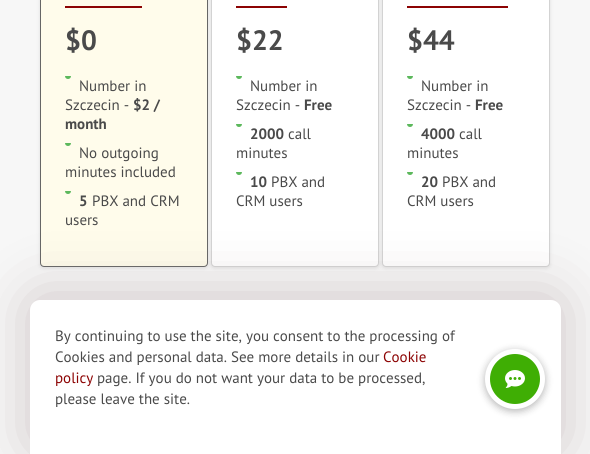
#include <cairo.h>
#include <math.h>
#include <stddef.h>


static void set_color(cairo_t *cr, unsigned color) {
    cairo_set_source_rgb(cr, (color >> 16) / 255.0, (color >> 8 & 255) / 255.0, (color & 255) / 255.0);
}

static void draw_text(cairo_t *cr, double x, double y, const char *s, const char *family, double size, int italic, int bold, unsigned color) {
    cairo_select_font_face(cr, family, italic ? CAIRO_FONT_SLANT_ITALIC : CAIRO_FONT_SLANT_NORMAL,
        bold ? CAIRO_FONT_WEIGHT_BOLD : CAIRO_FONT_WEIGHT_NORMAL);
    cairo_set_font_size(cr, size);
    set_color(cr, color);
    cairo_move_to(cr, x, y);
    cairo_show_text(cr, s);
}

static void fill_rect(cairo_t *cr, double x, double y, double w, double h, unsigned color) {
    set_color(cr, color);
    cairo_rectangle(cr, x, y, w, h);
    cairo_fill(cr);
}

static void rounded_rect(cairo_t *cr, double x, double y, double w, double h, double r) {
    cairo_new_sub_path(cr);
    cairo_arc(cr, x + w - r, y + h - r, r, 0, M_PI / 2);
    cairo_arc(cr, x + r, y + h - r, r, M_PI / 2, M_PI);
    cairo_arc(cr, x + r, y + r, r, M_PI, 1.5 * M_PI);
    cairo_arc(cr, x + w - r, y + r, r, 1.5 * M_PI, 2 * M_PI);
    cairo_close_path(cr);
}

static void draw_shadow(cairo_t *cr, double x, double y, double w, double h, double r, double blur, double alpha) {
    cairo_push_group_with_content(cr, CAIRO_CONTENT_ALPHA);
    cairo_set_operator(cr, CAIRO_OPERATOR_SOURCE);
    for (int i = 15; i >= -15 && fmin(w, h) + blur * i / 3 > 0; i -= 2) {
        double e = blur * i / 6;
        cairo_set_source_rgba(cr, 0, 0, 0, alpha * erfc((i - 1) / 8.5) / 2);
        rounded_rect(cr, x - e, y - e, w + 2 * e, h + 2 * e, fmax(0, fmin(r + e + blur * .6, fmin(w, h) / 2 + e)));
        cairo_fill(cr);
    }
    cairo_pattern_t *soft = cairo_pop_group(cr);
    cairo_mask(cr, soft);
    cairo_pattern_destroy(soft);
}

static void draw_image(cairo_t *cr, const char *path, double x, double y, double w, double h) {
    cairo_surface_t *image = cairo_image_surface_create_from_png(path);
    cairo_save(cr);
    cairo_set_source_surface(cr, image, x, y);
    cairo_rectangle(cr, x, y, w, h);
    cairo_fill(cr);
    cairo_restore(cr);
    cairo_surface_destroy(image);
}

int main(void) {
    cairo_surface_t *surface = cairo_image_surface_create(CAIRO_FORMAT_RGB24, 590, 454);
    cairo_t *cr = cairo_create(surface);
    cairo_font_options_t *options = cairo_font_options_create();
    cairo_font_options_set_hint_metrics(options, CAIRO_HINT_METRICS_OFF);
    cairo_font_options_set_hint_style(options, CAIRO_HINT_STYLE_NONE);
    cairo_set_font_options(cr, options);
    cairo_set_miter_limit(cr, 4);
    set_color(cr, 0xF7F7F7);
    cairo_paint(cr);
    set_color(cr, 0x000000);
    draw_shadow(cr, 40, -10, 168, 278, 4, 2, 0.1);
    set_color(cr, 0xFFFCEB);
    rounded_rect(cr, 40.5, -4.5, 167, 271, 3.5);
    cairo_fill_preserve(cr);
    set_color(cr, 0x666666);
    cairo_set_line_width(cr, 1);
    cairo_stroke(cr);
    fill_rect(cr, 65, 6, 77, 2, 0x8C0303);
    draw_text(cr, 65, 50, "$0", "PT Sans", 28, 0, 1, 0x4A4A4A);
    cairo_save(cr);
    cairo_rectangle(cr, 65, 76, 6, 3);
    cairo_clip(cr);
    set_color(cr, 0x5CB85C);
    cairo_arc(cr, 68, 76, 3, 0, 2 * M_PI);
    cairo_fill(cr);
    cairo_restore(cr);
    draw_text(cr, 79, 91, "Number in", "PT Sans", 15, 0, 0, 0x4A4A4A);
    draw_text(cr, 65, 110, "Szczecin -", "PT Sans", 15, 0, 0, 0x4A4A4A);
    draw_text(cr, 133, 110, "$2 /", "PT Sans", 15, 0, 1, 0x4A4A4A);
    draw_text(cr, 65, 129, "month", "PT Sans", 15, 0, 1, 0x4A4A4A);
    cairo_save(cr);
    cairo_rectangle(cr, 65, 143, 6, 3);
    cairo_clip(cr);
    set_color(cr, 0x5CB85C);
    cairo_arc(cr, 68, 143, 3, 0, 2 * M_PI);
    cairo_fill(cr);
    cairo_restore(cr);
    draw_text(cr, 79, 158, "No outgoing", "PT Sans", 15, 0, 0, 0x4A4A4A);
    draw_text(cr, 65, 177, "minutes included", "PT Sans", 15, 0, 0, 0x4A4A4A);
    cairo_save(cr);
    cairo_rectangle(cr, 65, 191, 6, 3);
    cairo_clip(cr);
    set_color(cr, 0x5CB85C);
    cairo_arc(cr, 68, 191, 3, 0, 2 * M_PI);
    cairo_fill(cr);
    cairo_restore(cr);
    draw_text(cr, 79, 206, "5", "PT Sans", 15, 0, 1, 0x4A4A4A);
    draw_text(cr, 92, 206, "PBX and CRM", "PT Sans", 15, 0, 0, 0x4A4A4A);
    draw_text(cr, 65, 225, "users", "PT Sans", 15, 0, 0, 0x4A4A4A);
    set_color(cr, 0x000000);
    draw_shadow(cr, 211, -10, 168, 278, 4, 2, 0.1);
    set_color(cr, 0xFFFFFF);
    rounded_rect(cr, 211.5, -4.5, 167, 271, 3.5);
    cairo_fill_preserve(cr);
    set_color(cr, 0xD3D3D3);
    cairo_stroke(cr);
    fill_rect(cr, 236, 6, 51, 2, 0x8C0303);
    draw_text(cr, 236, 50, "$22", "PT Sans", 28, 0, 1, 0x4A4A4A);
    cairo_save(cr);
    cairo_rectangle(cr, 236, 76, 6, 3);
    cairo_clip(cr);
    set_color(cr, 0x5CB85C);
    cairo_arc(cr, 239, 76, 3, 0, 2 * M_PI);
    cairo_fill(cr);
    cairo_restore(cr);
    draw_text(cr, 250, 91, "Number in", "PT Sans", 15, 0, 0, 0x4A4A4A);
    draw_text(cr, 236, 110, "Szczecin -", "PT Sans", 15, 0, 0, 0x4A4A4A);
    draw_text(cr, 304, 110, "Free", "PT Sans", 15, 0, 1, 0x4A4A4A);
    cairo_save(cr);
    cairo_rectangle(cr, 236, 124, 6, 3);
    cairo_clip(cr);
    set_color(cr, 0x5CB85C);
    cairo_arc(cr, 239, 124, 3, 0, 2 * M_PI);
    cairo_fill(cr);
    cairo_restore(cr);
    draw_text(cr, 250, 139, "2000", "PT Sans", 15, 0, 1, 0x4A4A4A);
    draw_text(cr, 288, 139, "call", "PT Sans", 15, 0, 0, 0x4A4A4A);
    draw_text(cr, 236, 158, "minutes", "PT Sans", 15, 0, 0, 0x4A4A4A);
    cairo_save(cr);
    cairo_rectangle(cr, 236, 172, 6, 3);
    cairo_clip(cr);
    set_color(cr, 0x5CB85C);
    cairo_arc(cr, 239, 172, 3, 0, 2 * M_PI);
    cairo_fill(cr);
    cairo_restore(cr);
    draw_text(cr, 250, 187, "10", "PT Sans", 15, 0, 1, 0x4A4A4A);
    draw_text(cr, 271, 187, "PBX and", "PT Sans", 15, 0, 0, 0x4A4A4A);
    draw_text(cr, 236, 206, "CRM users", "PT Sans", 15, 0, 0, 0x4A4A4A);
    set_color(cr, 0x000000);
    draw_shadow(cr, 382, -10, 168, 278, 4, 2, 0.1);
    set_color(cr, 0xFFFFFF);
    rounded_rect(cr, 382.5, -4.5, 167, 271, 3.5);
    cairo_fill_preserve(cr);
    set_color(cr, 0xD3D3D3);
    cairo_stroke(cr);
    fill_rect(cr, 407, 6, 101, 2, 0x8C0303);
    draw_text(cr, 407, 50, "$44", "PT Sans", 28, 0, 1, 0x4A4A4A);
    cairo_save(cr);
    cairo_rectangle(cr, 407, 76, 6, 3);
    cairo_clip(cr);
    set_color(cr, 0x5CB85C);
    cairo_arc(cr, 410, 76, 3, 0, 2 * M_PI);
    cairo_fill(cr);
    cairo_restore(cr);
    draw_text(cr, 421, 91, "Number in", "PT Sans", 15, 0, 0, 0x4A4A4A);
    draw_text(cr, 407, 110, "Szczecin -", "PT Sans", 15, 0, 0, 0x4A4A4A);
    draw_text(cr, 475, 110, "Free", "PT Sans", 15, 0, 1, 0x4A4A4A);
    cairo_save(cr);
    cairo_rectangle(cr, 407, 124, 6, 3);
    cairo_clip(cr);
    set_color(cr, 0x5CB85C);
    cairo_arc(cr, 410, 124, 3, 0, 2 * M_PI);
    cairo_fill(cr);
    cairo_restore(cr);
    draw_text(cr, 421, 139, "4000", "PT Sans", 15, 0, 1, 0x4A4A4A);
    draw_text(cr, 459, 139, "call", "PT Sans", 15, 0, 0, 0x4A4A4A);
    draw_text(cr, 407, 158, "minutes", "PT Sans", 15, 0, 0, 0x4A4A4A);
    cairo_save(cr);
    cairo_rectangle(cr, 407, 172, 6, 3);
    cairo_clip(cr);
    set_color(cr, 0x5CB85C);
    cairo_arc(cr, 410, 172, 3, 0, 2 * M_PI);
    cairo_fill(cr);
    cairo_restore(cr);
    draw_text(cr, 421, 187, "20", "PT Sans", 15, 0, 1, 0x4A4A4A);
    draw_text(cr, 442, 187, "PBX and", "PT Sans", 15, 0, 0, 0x4A4A4A);
    draw_text(cr, 407, 206, "CRM users", "PT Sans", 15, 0, 0, 0x4A4A4A);
    set_color(cr, 0x9A8486);
    draw_shadow(cr, 30, 296, 531, 154, 10, 30, 0.43);
    set_color(cr, 0xFFFFFF);
    cairo_new_path(cr);
    cairo_move_to(cr, 40, 300);
    cairo_line_to(cr, 551, 300);
    cairo_curve_to(cr, 556.5, 300, 561, 304.5, 561, 310);
    cairo_line_to(cr, 561, 454);
    cairo_line_to(cr, 30, 454);
    cairo_line_to(cr, 30, 310);
    cairo_curve_to(cr, 30, 304.5, 34.5, 300, 40, 300);
    cairo_close_path(cr);
    cairo_fill(cr);
    draw_text(cr, 55, 341, "By continuing to use the site, you consent to the processing of", "PT Sans", 15, 0, 0, 0x4A4A4A);
    draw_text(cr, 55, 362, "Cookies and personal data. See more details in our", "PT Sans", 15, 0, 0, 0x4A4A4A);
    draw_text(cr, 383, 362, "Cookie", "PT Sans", 15, 0, 0, 0x8C0303);
    draw_text(cr, 55, 383, "рolicy", "PT Sans", 15, 0, 0, 0x8C0303);
    draw_text(cr, 97, 383, "page. If you do not want your data to be processed,", "PT Sans", 15, 0, 0, 0x4A4A4A);
    draw_text(cr, 55, 404, "please leave the site.", "PT Sans", 15, 0, 0, 0x4A4A4A);
    set_color(cr, 0x000000);
    draw_shadow(cr, 485, 351, 60, 60, 30, 4, 0.3);
    set_color(cr, 0xFFFFFF);
    cairo_arc(cr, 515, 379, 30, 0, 2 * M_PI);
    cairo_fill(cr);
    set_color(cr, 0x3FAE04);
    cairo_arc(cr, 515, 379, 25, 0, 2 * M_PI);
    cairo_fill(cr);
    draw_image(cr, "assets/img1.png", 505, 370, 20, 18);
    cairo_surface_write_to_png(surface, "output.png");
    cairo_font_options_destroy(options);
    cairo_destroy(cr);
    cairo_surface_destroy(surface);
    return 0;
}
